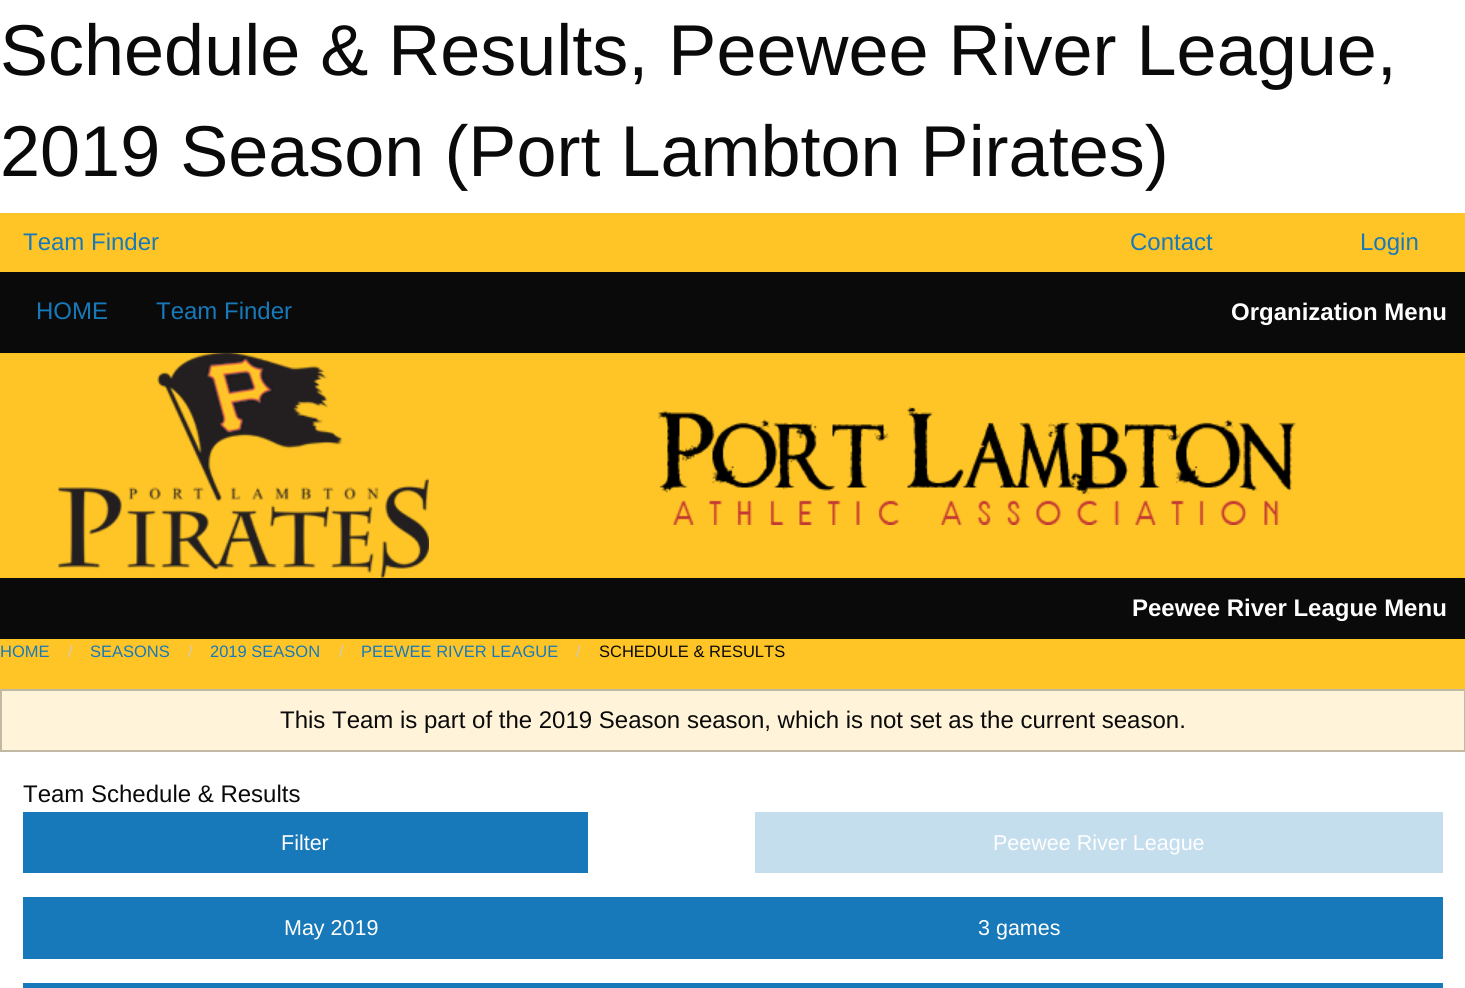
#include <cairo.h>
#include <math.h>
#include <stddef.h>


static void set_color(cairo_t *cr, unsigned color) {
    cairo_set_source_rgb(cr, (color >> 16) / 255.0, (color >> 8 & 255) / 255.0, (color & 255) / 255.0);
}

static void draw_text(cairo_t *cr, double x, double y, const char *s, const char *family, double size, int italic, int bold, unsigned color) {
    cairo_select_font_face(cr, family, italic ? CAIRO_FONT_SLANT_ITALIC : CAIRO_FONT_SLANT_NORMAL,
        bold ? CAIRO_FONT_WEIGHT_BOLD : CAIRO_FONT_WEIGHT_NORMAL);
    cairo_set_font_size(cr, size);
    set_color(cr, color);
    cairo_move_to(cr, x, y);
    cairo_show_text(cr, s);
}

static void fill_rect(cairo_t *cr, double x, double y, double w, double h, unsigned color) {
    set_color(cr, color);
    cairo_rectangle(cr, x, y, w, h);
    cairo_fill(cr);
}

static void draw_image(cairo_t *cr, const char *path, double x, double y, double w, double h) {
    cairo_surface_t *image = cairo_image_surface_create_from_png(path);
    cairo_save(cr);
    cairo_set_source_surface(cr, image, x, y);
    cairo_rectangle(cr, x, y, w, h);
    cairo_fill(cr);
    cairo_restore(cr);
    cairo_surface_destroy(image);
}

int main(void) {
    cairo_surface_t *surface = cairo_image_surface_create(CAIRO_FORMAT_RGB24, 1465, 988);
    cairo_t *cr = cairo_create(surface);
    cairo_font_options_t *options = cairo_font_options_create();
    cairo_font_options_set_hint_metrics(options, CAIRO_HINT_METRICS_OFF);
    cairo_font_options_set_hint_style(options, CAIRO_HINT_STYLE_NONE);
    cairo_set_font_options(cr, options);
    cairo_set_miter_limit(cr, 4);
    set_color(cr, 0xFFFFFF);
    cairo_paint(cr);
    draw_text(cr, 0, 75, "Schedule & Results, Peewee River League,", "Liberation Sans", 72, 0, 0, 0x0A0A0A);
    draw_text(cr, 0, 176, "2019 Season (Port Lambton Pirates)", "Liberation Sans", 72, 0, 0, 0x0A0A0A);
    fill_rect(cr, 0, 213, 1465, 476, 0xFFC526);
    draw_text(cr, 23, 250, "Team Finder", "Liberation Sans", 24, 0, 0, 0x1779BA);
    draw_text(cr, 1130, 250, "Contact", "Liberation Sans", 24, 0, 0, 0x1779BA);
    draw_text(cr, 1360, 250, "Login", "Liberation Sans", 24, 0, 0, 0x1779BA);
    fill_rect(cr, 0, 272, 1465, 81, 0x0A0A0A);
    draw_text(cr, 36, 319, "HOME", "Liberation Sans", 24, 0, 0, 0x1779BA);
    draw_text(cr, 156, 319, "Team Finder", "Liberation Sans", 24, 0, 0, 0x1779BA);
    draw_text(cr, 1231, 320, "Organization Menu", "Liberation Sans", 24, 0, 1, 0xFEFEFE);
    draw_image(cr, "assets/img1.png", 58, 352, 371, 226);
    draw_image(cr, "assets/img2.png", 658, 406, 638, 119);
    fill_rect(cr, 0, 578, 1465, 61, 0x0A0A0A);
    draw_text(cr, 1132, 616, "Peewee River League Menu", "Liberation Sans", 24, 0, 1, 0xFEFEFE);
    draw_text(cr, 0, 657, "HOME", "Liberation Sans", 16.5, 0, 0, 0x1779BA);
    draw_text(cr, 68, 657, "/", "Liberation Sans", 16.5, 0, 0, 0xCACACA);
    draw_text(cr, 90, 657, "SEASONS", "Liberation Sans", 16.5, 0, 0, 0x1779BA);
    draw_text(cr, 188, 657, "/", "Liberation Sans", 16.5, 0, 0, 0xCACACA);
    draw_text(cr, 210, 657, "2019 SEASON", "Liberation Sans", 16.5, 0, 0, 0x1779BA);
    draw_text(cr, 339, 657, "/", "Liberation Sans", 16.5, 0, 0, 0xCACACA);
    draw_text(cr, 361, 657, "PEEWEE RIVER LEAGUE", "Liberation Sans", 16.5, 0, 0, 0x1779BA);
    draw_text(cr, 576, 657, "/", "Liberation Sans", 16.5, 0, 0, 0xCACACA);
    draw_text(cr, 599, 657, "SCHEDULE & RESULTS", "Liberation Sans", 16.5, 0, 0, 0x0A0A0A);
    set_color(cr, 0xFFF3D9);
    cairo_rectangle(cr, 1, 690, 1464, 61);
    cairo_fill_preserve(cr);
    set_color(cr, 0xC2B9A5);
    cairo_stroke(cr);
    draw_text(cr, 280, 728, "This Team is part of the 2019 Season season, which is not set as the current season.", "Liberation Sans", 24, 0, 0, 0x0A0A0A);
    draw_text(cr, 23, 802, "Team Schedule & Results", "Liberation Sans", 24, 0, 0, 0x0A0A0A);
    fill_rect(cr, 23, 812, 565, 61, 0x1779BA);
    draw_text(cr, 281, 850, "Filter", "Liberation Sans", 21.5, 0, 0, 0xFEFEFE);
    fill_rect(cr, 755, 812, 688, 61, 0xC5DEEE);
    draw_text(cr, 993, 850, "Peewee River League", "Liberation Sans", 21.5, 0, 0, 0xFEFEFE);
    fill_rect(cr, 23, 897, 1420, 62, 0x1779BA);
    draw_text(cr, 284, 935, "May 2019", "Liberation Sans", 21.5, 0, 0, 0xFEFEFE);
    draw_text(cr, 978, 935, "3 games", "Liberation Sans", 21.5, 0, 0, 0xFEFEFE);
    fill_rect(cr, 23, 983, 1420, 5, 0x1779BA);
    cairo_surface_write_to_png(surface, "output.png");
    cairo_font_options_destroy(options);
    cairo_destroy(cr);
    cairo_surface_destroy(surface);
    return 0;
}
